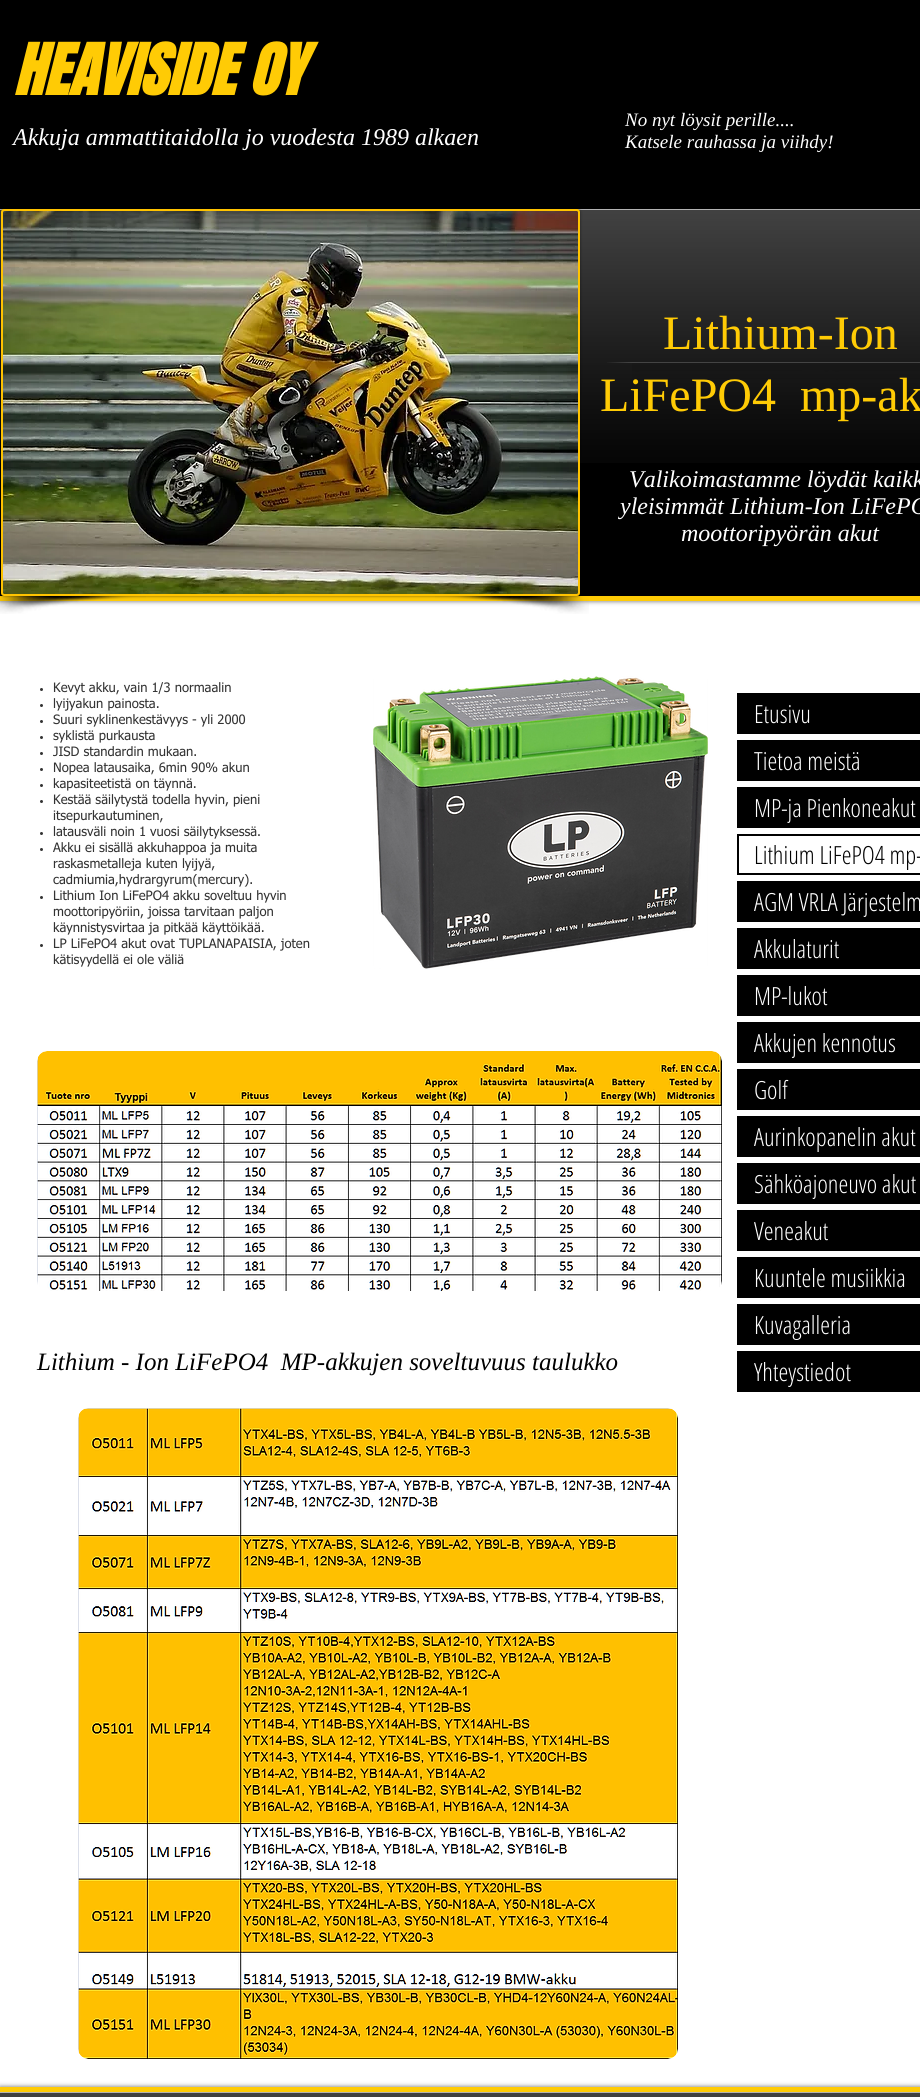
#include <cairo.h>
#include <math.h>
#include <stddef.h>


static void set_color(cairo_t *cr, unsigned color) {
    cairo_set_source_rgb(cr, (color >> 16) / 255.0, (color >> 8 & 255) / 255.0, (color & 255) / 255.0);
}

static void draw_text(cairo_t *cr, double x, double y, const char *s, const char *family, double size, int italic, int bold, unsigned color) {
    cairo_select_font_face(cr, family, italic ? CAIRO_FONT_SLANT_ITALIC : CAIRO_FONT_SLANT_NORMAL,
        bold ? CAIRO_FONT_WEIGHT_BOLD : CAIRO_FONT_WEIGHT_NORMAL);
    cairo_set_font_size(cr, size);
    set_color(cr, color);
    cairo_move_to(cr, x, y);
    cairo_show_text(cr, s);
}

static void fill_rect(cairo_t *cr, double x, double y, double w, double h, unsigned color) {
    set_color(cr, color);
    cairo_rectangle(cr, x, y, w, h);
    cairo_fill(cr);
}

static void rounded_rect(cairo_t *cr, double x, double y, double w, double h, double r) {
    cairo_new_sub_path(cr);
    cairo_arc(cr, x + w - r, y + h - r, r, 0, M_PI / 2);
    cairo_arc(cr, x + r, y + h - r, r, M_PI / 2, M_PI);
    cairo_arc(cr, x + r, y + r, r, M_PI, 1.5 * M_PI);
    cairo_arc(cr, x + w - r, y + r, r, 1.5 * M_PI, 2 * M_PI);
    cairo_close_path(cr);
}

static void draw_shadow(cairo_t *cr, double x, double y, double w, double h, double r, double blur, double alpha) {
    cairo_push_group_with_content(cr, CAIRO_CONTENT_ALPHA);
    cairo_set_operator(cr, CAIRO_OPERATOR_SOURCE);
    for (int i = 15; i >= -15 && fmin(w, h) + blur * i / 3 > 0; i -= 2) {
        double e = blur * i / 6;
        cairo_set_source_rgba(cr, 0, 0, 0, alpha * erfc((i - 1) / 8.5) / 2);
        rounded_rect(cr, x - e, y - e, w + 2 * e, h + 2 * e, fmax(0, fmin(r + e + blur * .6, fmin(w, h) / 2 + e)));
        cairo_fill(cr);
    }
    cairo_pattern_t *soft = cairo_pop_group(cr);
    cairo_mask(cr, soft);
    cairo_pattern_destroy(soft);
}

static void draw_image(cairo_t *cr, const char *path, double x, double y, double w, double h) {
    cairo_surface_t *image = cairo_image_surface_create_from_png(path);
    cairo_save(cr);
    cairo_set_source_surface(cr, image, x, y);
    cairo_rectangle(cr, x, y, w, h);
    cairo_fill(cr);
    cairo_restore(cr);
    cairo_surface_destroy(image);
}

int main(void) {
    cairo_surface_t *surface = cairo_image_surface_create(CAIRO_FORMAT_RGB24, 920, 2097);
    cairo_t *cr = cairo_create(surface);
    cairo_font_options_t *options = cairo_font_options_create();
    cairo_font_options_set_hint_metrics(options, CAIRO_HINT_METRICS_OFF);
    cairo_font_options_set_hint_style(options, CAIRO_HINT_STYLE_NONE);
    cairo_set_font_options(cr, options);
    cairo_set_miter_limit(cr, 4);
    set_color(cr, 0x000000);
    cairo_paint(cr);
    draw_text(cr, 13, 95, "HEAVISIDE OY", "Anton", 60, 1, 1, 0xFFCB05);
    draw_text(cr, 13, 145, "Akkuja ammattitaidolla jo vuodesta 1989 alkaen", "Liberation Serif", 24, 1, 0, 0xFFFFFF);
    draw_text(cr, 625, 126, "No nyt löysit perille....", "Liberation Serif", 19, 1, 0, 0xFFFFFF);
    draw_text(cr, 625, 148, "Katsele rauhassa ja viihdy!", "Liberation Serif", 19, 1, 0, 0xFFFFFF);
    fill_rect(cr, 0, 601, 920, 1486, 0xFFFFFF);
    set_color(cr, 0x000000);
    draw_shadow(cr, 0, 209, 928, 392, 0, 2.5, 0.6);
    draw_image(cr, "assets/img1.png", 0, 210, 920, 253);
    fill_rect(cr, 0, 209, 920, 1, 0xB3B3B3);
    fill_rect(cr, 0, 596, 920, 5, 0xFFCB05);
    set_color(cr, 0x000000);
    draw_shadow(cr, 1, 209, 579, 387, 3, 1.5, 0.5);
    set_color(cr, 0xFFC300);
    rounded_rect(cr, 2, 210, 577, 385, 2);
    cairo_fill_preserve(cr);
    cairo_stroke(cr);
    draw_image(cr, "assets/img2.png", 3, 211, 575, 383);
    draw_image(cr, "assets/img3.png", 0, 596, 146, 18);
    draw_image(cr, "assets/img4.png", 435, 596, 154, 18);
    draw_text(cr, 663, 349, "Lithium-Ion", "Liberation Serif", 48, 0, 0, 0xFFCB05);
    draw_text(cr, 600, 411, "LiFePO4  mp-ak", "Liberation Serif", 48, 0, 0, 0xFFCB05);
    draw_text(cr, 629, 487, "Valikoimastamme löydät kaikk", "Liberation Serif", 24, 1, 0, 0xFFFFFF);
    draw_text(cr, 620, 514, "yleisimmät Lithium-Ion LiFePO", "Liberation Serif", 24, 1, 0, 0xFFFFFF);
    draw_text(cr, 681, 541, "moottoripyörän akut", "Liberation Serif", 24, 1, 0, 0xFFFFFF);
    draw_image(cr, "assets/img5.png", 607, 362, 25, 1);
    draw_image(cr, "assets/img6.png", 632, 362, 288, 18);
    set_color(cr, 0x333333);
    cairo_arc(cr, 41.5, 689.5, 1.5, 0, 2 * M_PI);
    cairo_fill(cr);
    draw_text(cr, 53, 692, "Kevyt akku, vain 1/3 normaalin", "tahoma", 13, 0, 0, 0x333333);
    cairo_new_path(cr);
    cairo_arc(cr, 41.5, 705.5, 1.5, 0, 2 * M_PI);
    cairo_fill(cr);
    draw_text(cr, 53, 708, "lyijyakun painosta.", "tahoma", 13, 0, 0, 0x333333);
    cairo_new_path(cr);
    cairo_arc(cr, 41.5, 721.5, 1.5, 0, 2 * M_PI);
    cairo_fill(cr);
    draw_text(cr, 53, 724, "Suuri syklinenkestävyys - yli 2000", "tahoma", 13, 0, 0, 0x333333);
    cairo_new_path(cr);
    cairo_arc(cr, 41.5, 737.5, 1.5, 0, 2 * M_PI);
    cairo_fill(cr);
    draw_text(cr, 53, 740, "syklistä purkausta", "tahoma", 13, 0, 0, 0x333333);
    cairo_new_path(cr);
    cairo_arc(cr, 41.5, 753.5, 1.5, 0, 2 * M_PI);
    cairo_fill(cr);
    draw_text(cr, 53, 756, "JISD standardin mukaan.", "tahoma", 13, 0, 0, 0x333333);
    cairo_new_path(cr);
    cairo_arc(cr, 41.5, 769.5, 1.5, 0, 2 * M_PI);
    cairo_fill(cr);
    draw_text(cr, 53, 772, "Nopea latausaika, 6min 90% akun", "tahoma", 13, 0, 0, 0x333333);
    cairo_new_path(cr);
    cairo_arc(cr, 41.5, 785.5, 1.5, 0, 2 * M_PI);
    cairo_fill(cr);
    draw_text(cr, 53, 788, "kapasiteetistä on täynnä.", "tahoma", 13, 0, 0, 0x333333);
    cairo_new_path(cr);
    cairo_arc(cr, 41.5, 801.5, 1.5, 0, 2 * M_PI);
    cairo_fill(cr);
    draw_text(cr, 53, 804, "Kestää säilytystä todella hyvin, pieni", "tahoma", 13, 0, 0, 0x333333);
    draw_text(cr, 53, 820, "itsepurkautuminen,", "tahoma", 13, 0, 0, 0x333333);
    cairo_new_path(cr);
    cairo_arc(cr, 41.5, 833.5, 1.5, 0, 2 * M_PI);
    cairo_fill(cr);
    draw_text(cr, 53, 836, "latausväli noin 1 vuosi säilytyksessä.", "tahoma", 13, 0, 0, 0x333333);
    cairo_new_path(cr);
    cairo_arc(cr, 41.5, 849.5, 1.5, 0, 2 * M_PI);
    cairo_fill(cr);
    draw_text(cr, 53, 852, "Akku ei sisällä akkuhappoa ja muita", "tahoma", 13, 0, 0, 0x333333);
    draw_text(cr, 53, 868, "raskasmetalleja kuten lyijyä,", "tahoma", 13, 0, 0, 0x333333);
    draw_text(cr, 53, 884, "cadmiumia,hydrargyrum(mercury).", "tahoma", 13, 0, 0, 0x333333);
    cairo_new_path(cr);
    cairo_arc(cr, 41.5, 897.5, 1.5, 0, 2 * M_PI);
    cairo_fill(cr);
    draw_text(cr, 53, 900, "Lithium Ion LiFePO4 akku soveltuu hyvin", "tahoma", 13, 0, 0, 0x333333);
    draw_text(cr, 53, 916, "moottoripyöriin, joissa tarvitaan paljon", "tahoma", 13, 0, 0, 0x333333);
    draw_text(cr, 53, 932, "käynnistysvirtaa ja pitkää käyttöikää.", "tahoma", 13, 0, 0, 0x333333);
    cairo_new_path(cr);
    cairo_arc(cr, 41.5, 945.5, 1.5, 0, 2 * M_PI);
    cairo_fill(cr);
    draw_text(cr, 53, 948, "LP LiFePO4 akut ovat TUPLANAPAISIA, joten", "tahoma", 13, 0, 0, 0x333333);
    draw_text(cr, 53, 964, "kätisyydellä ei ole väliä", "tahoma", 13, 0, 0, 0x333333);
    draw_image(cr, "assets/img7.png", 373, 676, 335, 293);
    fill_rect(cr, 737, 693, 183, 41, 0x000000);
    draw_text(cr, 754, 723, "Etusivu", "Open Sans Condensed Light", 25, 0, 0, 0xFFFFFF);
    fill_rect(cr, 737, 740, 183, 41, 0x000000);
    draw_text(cr, 754, 770, "Tietoa meistä", "Open Sans Condensed Light", 25, 0, 0, 0xFFFFFF);
    fill_rect(cr, 737, 787, 183, 41, 0x000000);
    draw_text(cr, 754, 817, "MP-ja Pienkoneakut", "Open Sans Condensed Light", 25, 0, 0, 0xFFFFFF);
    cairo_rectangle(cr, 738, 835, 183, 39);
    set_color(cr, 0x000000);
    cairo_stroke(cr);
    draw_text(cr, 754, 864, "Lithium LiFePO4 mp-", "Open Sans Condensed Light", 25, 0, 0, 0x000000);
    fill_rect(cr, 737, 881, 183, 41, 0x000000);
    draw_text(cr, 754, 911, "AGM VRLA Järjestelm", "Open Sans Condensed Light", 25, 0, 0, 0xFFFFFF);
    fill_rect(cr, 737, 928, 183, 41, 0x000000);
    draw_text(cr, 754, 958, "Akkulaturit", "Open Sans Condensed Light", 25, 0, 0, 0xFFFFFF);
    fill_rect(cr, 737, 975, 183, 41, 0x000000);
    draw_text(cr, 754, 1005, "MP-lukot", "Open Sans Condensed Light", 25, 0, 0, 0xFFFFFF);
    fill_rect(cr, 737, 1022, 183, 41, 0x000000);
    draw_text(cr, 754, 1052, "Akkujen kennotus", "Open Sans Condensed Light", 25, 0, 0, 0xFFFFFF);
    fill_rect(cr, 737, 1069, 183, 41, 0x000000);
    draw_text(cr, 754, 1099, "Golf", "Open Sans Condensed Light", 25, 0, 0, 0xFFFFFF);
    fill_rect(cr, 737, 1116, 183, 41, 0x000000);
    draw_text(cr, 754, 1146, "Aurinkopanelin akut", "Open Sans Condensed Light", 25, 0, 0, 0xFFFFFF);
    fill_rect(cr, 737, 1163, 183, 41, 0x000000);
    draw_text(cr, 754, 1193, "Sähköajoneuvo akut", "Open Sans Condensed Light", 25, 0, 0, 0xFFFFFF);
    fill_rect(cr, 737, 1210, 183, 41, 0x000000);
    draw_text(cr, 754, 1240, "Veneakut", "Open Sans Condensed Light", 25, 0, 0, 0xFFFFFF);
    fill_rect(cr, 737, 1257, 183, 41, 0x000000);
    draw_text(cr, 754, 1287, "Kuuntele musiikkia", "Open Sans Condensed Light", 25, 0, 0, 0xFFFFFF);
    fill_rect(cr, 737, 1304, 183, 41, 0x000000);
    draw_text(cr, 754, 1334, "Kuvagalleria", "Open Sans Condensed Light", 25, 0, 0, 0xFFFFFF);
    fill_rect(cr, 737, 1351, 183, 41, 0x000000);
    draw_text(cr, 754, 1381, "Yhteystiedot", "Open Sans Condensed Light", 25, 0, 0, 0xFFFFFF);
    draw_image(cr, "assets/img8.png", 37, 1051, 685, 240);
    draw_text(cr, 37, 1370, "Lithium - Ion LiFePO4  MP-akkujen soveltuvuus taulukko", "Liberation Serif", 25, 1, 0, 0x000000);
    draw_image(cr, "assets/img9.png", 78, 1408, 600, 651);
    set_color(cr, 0x000000);
    draw_shadow(cr, 0, 2087, 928, 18, 0, 2.5, 0.6);
    fill_rect(cr, 0, 2093, 920, 4, 0x404040);
    fill_rect(cr, 0, 2092, 920, 1, 0xB3B3B3);
    fill_rect(cr, 0, 2087, 920, 5, 0xFFCB05);
    cairo_surface_write_to_png(surface, "output.png");
    cairo_font_options_destroy(options);
    cairo_destroy(cr);
    cairo_surface_destroy(surface);
    return 0;
}
